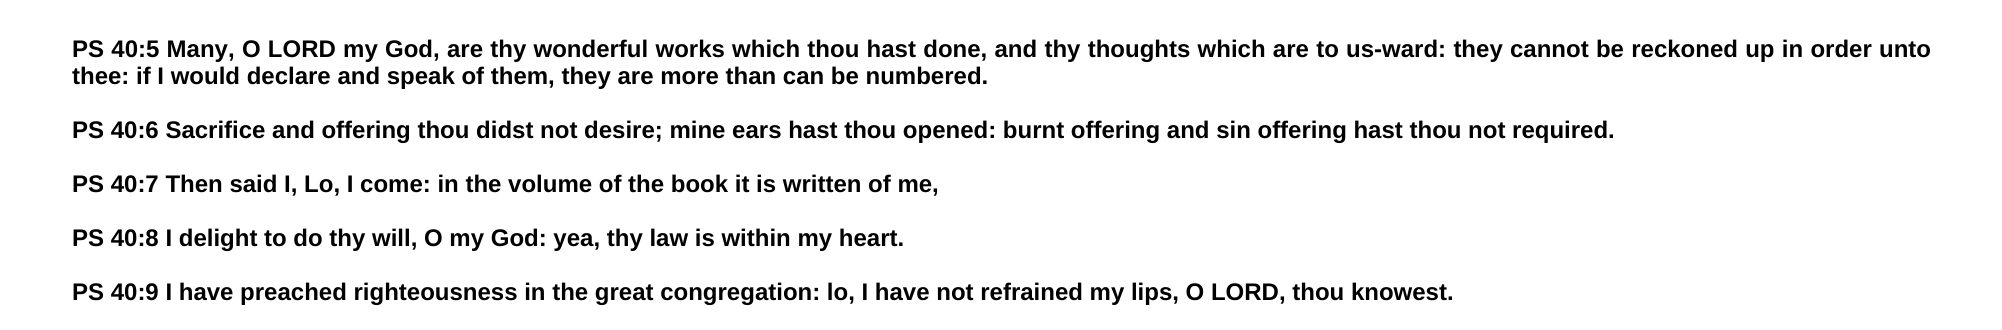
#include <cairo.h>
#include <math.h>
#include <stddef.h>


static void set_color(cairo_t *cr, unsigned color) {
    cairo_set_source_rgb(cr, (color >> 16) / 255.0, (color >> 8 & 255) / 255.0, (color & 255) / 255.0);
}

static void draw_text(cairo_t *cr, double x, double y, const char *s, const char *family, double size, int italic, int bold, unsigned color) {
    cairo_select_font_face(cr, family, italic ? CAIRO_FONT_SLANT_ITALIC : CAIRO_FONT_SLANT_NORMAL,
        bold ? CAIRO_FONT_WEIGHT_BOLD : CAIRO_FONT_WEIGHT_NORMAL);
    cairo_set_font_size(cr, size);
    set_color(cr, color);
    cairo_move_to(cr, x, y);
    cairo_show_text(cr, s);
}

static void draw_spaced(cairo_t *cr, double x, double y, const char *s, double letter, double word) {
    cairo_move_to(cr, x, y);
    while (*s) {
        char ch[5] = {0};
        int n = 0;
        do ch[n++] = *s++; while ((*s & 0xC0) == 0x80);
        cairo_show_text(cr, ch);
        cairo_rel_move_to(cr, letter + word * (*ch == ' '), 0);
    }
}

int main(void) {
    cairo_surface_t *surface = cairo_image_surface_create(CAIRO_FORMAT_RGB24, 2002, 330);
    cairo_t *cr = cairo_create(surface);
    cairo_font_options_t *options = cairo_font_options_create();
    cairo_font_options_set_hint_metrics(options, CAIRO_HINT_METRICS_OFF);
    cairo_font_options_set_hint_style(options, CAIRO_HINT_STYLE_NONE);
    cairo_set_font_options(cr, options);
    cairo_set_miter_limit(cr, 4);
    set_color(cr, 0xFFFFFF);
    cairo_paint(cr);
    cairo_select_font_face(cr, "Liberation Sans", CAIRO_FONT_SLANT_NORMAL, CAIRO_FONT_WEIGHT_BOLD);
    cairo_set_font_size(cr, 24);
    set_color(cr, 0x000000);
    draw_spaced(cr, 72, 57, "PS 40:5 Many, O LORD my God, are thy wonderful works which thou hast done, and thy thoughts which are to us-ward: they cannot be reckoned up in order unto", 0, 0.6);
    draw_text(cr, 72, 84, "thee: if I would declare and speak of them, they are more than can be numbered.", "Liberation Sans", 24, 0, 1, 0x000000);
    draw_text(cr, 72, 138, "PS 40:6 Sacrifice and offering thou didst not desire; mine ears hast thou opened: burnt offering and sin offering hast thou not required.", "Liberation Sans", 24, 0, 1, 0x000000);
    draw_text(cr, 72, 192, "PS 40:7 Then said I, Lo, I come: in the volume of the book it is written of me,", "Liberation Sans", 24, 0, 1, 0x000000);
    draw_text(cr, 72, 246, "PS 40:8 I delight to do thy will, O my God: yea, thy law is within my heart.", "Liberation Sans", 24, 0, 1, 0x000000);
    draw_text(cr, 72, 300, "PS 40:9 I have preached righteousness in the great congregation: lo, I have not refrained my lips, O LORD, thou knowest.", "Liberation Sans", 24, 0, 1, 0x000000);
    cairo_surface_write_to_png(surface, "output.png");
    cairo_font_options_destroy(options);
    cairo_destroy(cr);
    cairo_surface_destroy(surface);
    return 0;
}
